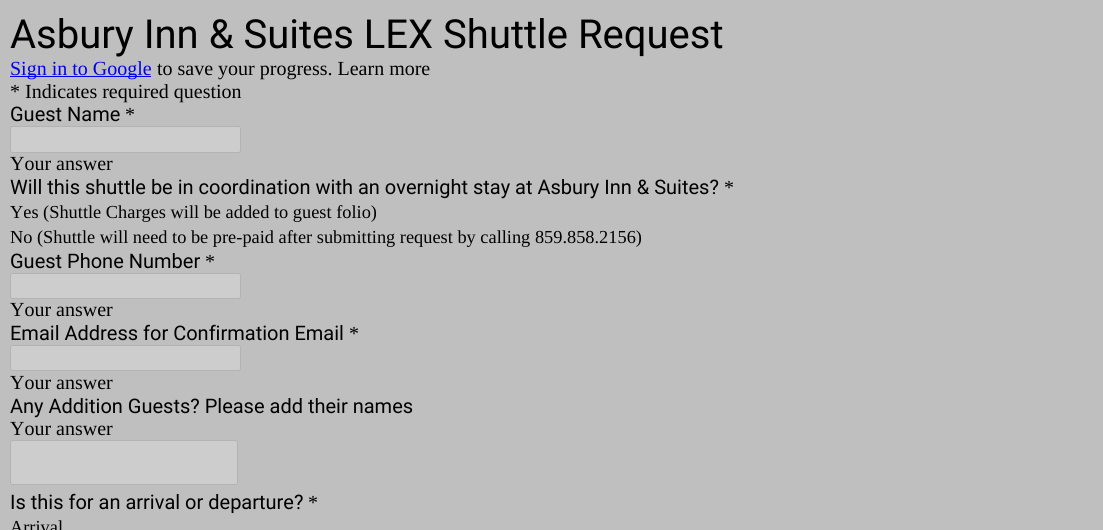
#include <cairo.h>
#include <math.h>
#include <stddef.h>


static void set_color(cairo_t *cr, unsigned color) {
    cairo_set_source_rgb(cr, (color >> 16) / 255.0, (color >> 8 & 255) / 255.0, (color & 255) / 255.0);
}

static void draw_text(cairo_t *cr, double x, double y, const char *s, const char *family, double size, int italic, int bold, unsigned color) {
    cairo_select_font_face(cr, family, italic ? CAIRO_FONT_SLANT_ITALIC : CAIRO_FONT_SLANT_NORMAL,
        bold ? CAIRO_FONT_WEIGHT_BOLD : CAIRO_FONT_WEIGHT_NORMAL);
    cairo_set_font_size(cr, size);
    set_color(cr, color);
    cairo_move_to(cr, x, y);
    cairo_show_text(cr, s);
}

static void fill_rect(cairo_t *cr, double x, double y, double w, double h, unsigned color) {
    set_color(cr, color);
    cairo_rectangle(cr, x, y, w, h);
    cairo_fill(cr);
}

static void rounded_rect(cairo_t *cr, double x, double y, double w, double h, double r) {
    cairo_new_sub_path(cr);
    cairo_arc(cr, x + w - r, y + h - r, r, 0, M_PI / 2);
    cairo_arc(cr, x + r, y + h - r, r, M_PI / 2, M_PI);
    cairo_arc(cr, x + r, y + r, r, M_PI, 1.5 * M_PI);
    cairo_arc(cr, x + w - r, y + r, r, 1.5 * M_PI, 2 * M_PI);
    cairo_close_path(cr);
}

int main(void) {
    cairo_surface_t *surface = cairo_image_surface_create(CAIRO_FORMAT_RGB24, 1103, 530);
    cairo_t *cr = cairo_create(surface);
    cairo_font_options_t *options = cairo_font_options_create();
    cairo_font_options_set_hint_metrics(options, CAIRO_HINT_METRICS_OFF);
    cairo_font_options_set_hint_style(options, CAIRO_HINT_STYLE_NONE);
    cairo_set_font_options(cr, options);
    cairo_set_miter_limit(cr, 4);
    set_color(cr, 0xBFBFBF);
    cairo_paint(cr);
    draw_text(cr, 10, 48, "Asbury Inn & Suites LEX Shuttle Request", "Roboto", 40, 0, 0, 0x000000);
    fill_rect(cr, 10, 76, 141, 1, 0x0000EE);
    draw_text(cr, 10, 75, "Sign in to Google", "Liberation Serif", 20, 0, 0, 0x0000EE);
    draw_text(cr, 157, 75, "to save your progress. Learn more", "Liberation Serif", 20, 0, 0, 0x000000);
    draw_text(cr, 10, 98, "* Indicates required question", "Liberation Serif", 20, 0, 0, 0x000000);
    draw_text(cr, 10, 121, "Guest Name", "Roboto", 20, 0, 0, 0x000000);
    draw_text(cr, 125, 121, "*", "Liberation Serif", 20, 0, 0, 0x000000);
    set_color(cr, 0xCDCDCD);
    rounded_rect(cr, 10, 126, 231, 27, 2.5);
    cairo_fill(cr);
    rounded_rect(cr, 10.5, 126.5, 230, 26, 2);
    cairo_set_source_rgba(cr, 0.463, 0.463, 0.463, 0.3);
    cairo_set_line_width(cr, 1);
    cairo_stroke(cr);
    draw_text(cr, 10, 170, "Your answer", "Liberation Serif", 20, 0, 0, 0x000000);
    draw_text(cr, 10, 194, "Will this shuttle be in coordination with an overnight stay at Asbury Inn & Suites?", "Roboto", 20, 0, 0, 0x000000);
    draw_text(cr, 724, 194, "*", "Liberation Serif", 20, 0, 0, 0x000000);
    draw_text(cr, 10, 218, "Yes (Shuttle Charges will be added to guest folio)", "Liberation Serif", 18.35, 0, 0, 0x000000);
    draw_text(cr, 10, 243, "No (Shuttle will need to be pre-paid after submitting request by calling 859.858.2156)", "Liberation Serif", 18.35, 0, 0, 0x000000);
    draw_text(cr, 10, 268, "Guest Phone Number", "Roboto", 20, 0, 0, 0x000000);
    draw_text(cr, 205, 268, "*", "Liberation Serif", 20, 0, 0, 0x000000);
    set_color(cr, 0xCDCDCD);
    rounded_rect(cr, 10, 273, 231, 26, 2.5);
    cairo_fill(cr);
    rounded_rect(cr, 10.5, 273.5, 230, 25, 2);
    cairo_set_source_rgba(cr, 0.463, 0.463, 0.463, 0.3);
    cairo_stroke(cr);
    draw_text(cr, 10, 316, "Your answer", "Liberation Serif", 20, 0, 0, 0x000000);
    draw_text(cr, 10, 340, "Email Address for Confirmation Email", "Roboto", 20, 0, 0, 0x000000);
    draw_text(cr, 349, 340, "*", "Liberation Serif", 20, 0, 0, 0x000000);
    set_color(cr, 0xCDCDCD);
    rounded_rect(cr, 10, 345, 231, 26, 2.5);
    cairo_fill(cr);
    rounded_rect(cr, 10.5, 345.5, 230, 25, 2);
    cairo_set_source_rgba(cr, 0.463, 0.463, 0.463, 0.3);
    cairo_stroke(cr);
    draw_text(cr, 10, 389, "Your answer", "Liberation Serif", 20, 0, 0, 0x000000);
    draw_text(cr, 10, 413, "Any Addition Guests? Please add their names", "Roboto", 20, 0, 0, 0x000000);
    draw_text(cr, 10, 435, "Your answer", "Liberation Serif", 20, 0, 0, 0x000000);
    set_color(cr, 0xCDCDCD);
    rounded_rect(cr, 10, 440, 228, 45, 2.5);
    cairo_fill(cr);
    rounded_rect(cr, 10.5, 440.5, 227, 44, 2);
    cairo_set_source_rgba(cr, 0.463, 0.463, 0.463, 0.3);
    cairo_stroke(cr);
    draw_text(cr, 10, 509, "Is this for an arrival or departure?", "Roboto", 20, 0, 0, 0x000000);
    draw_text(cr, 308, 509, "*", "Liberation Serif", 20, 0, 0, 0x000000);
    draw_text(cr, 10, 533, "Arrival", "Liberation Serif", 18.35, 0, 0, 0x000000);
    cairo_surface_write_to_png(surface, "output.png");
    cairo_font_options_destroy(options);
    cairo_destroy(cr);
    cairo_surface_destroy(surface);
    return 0;
}
